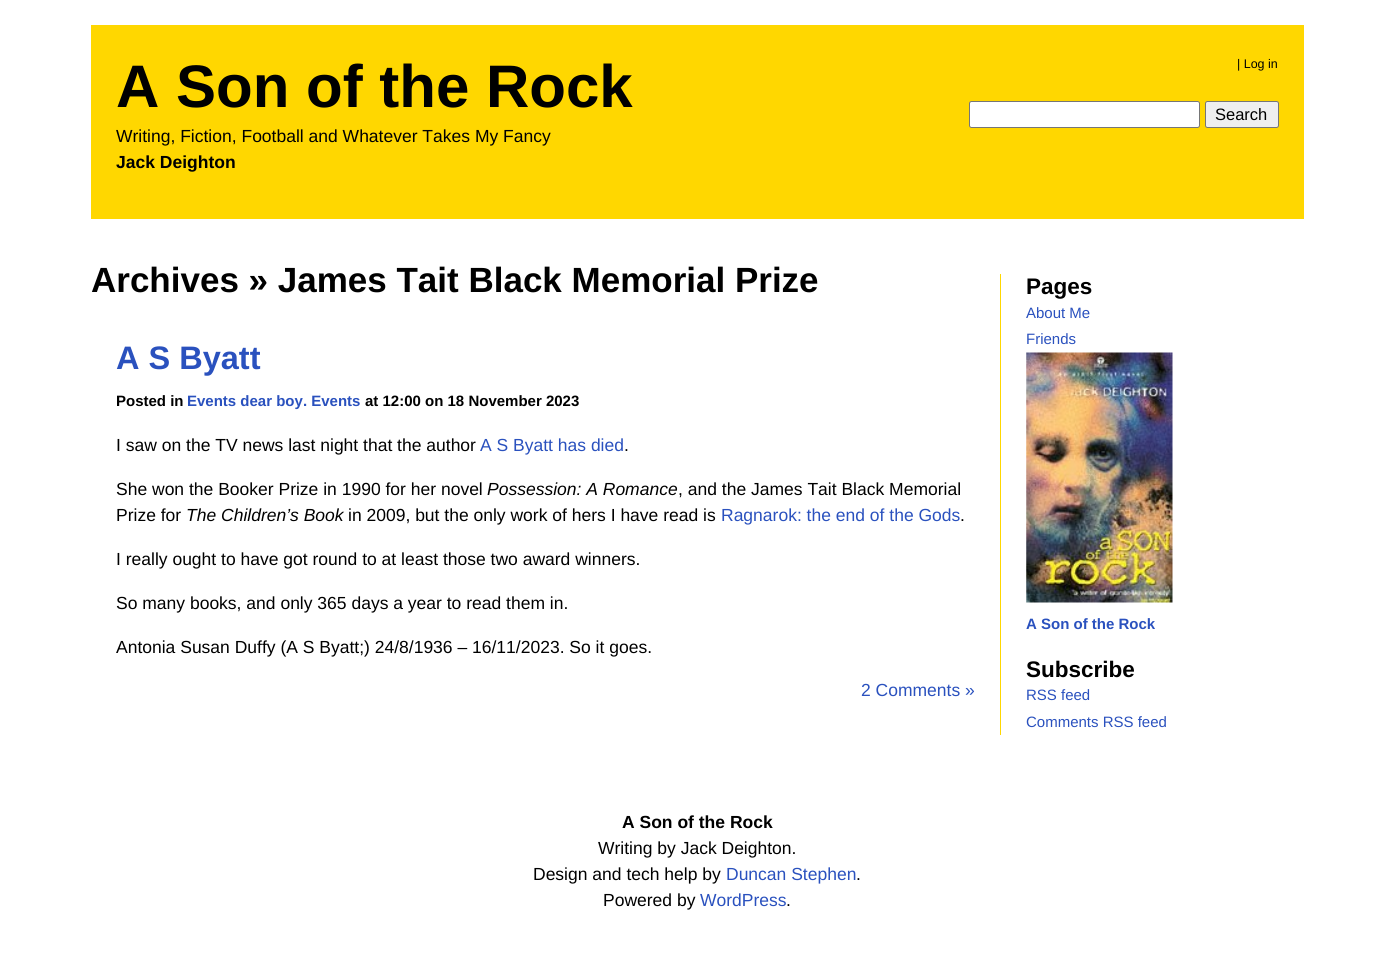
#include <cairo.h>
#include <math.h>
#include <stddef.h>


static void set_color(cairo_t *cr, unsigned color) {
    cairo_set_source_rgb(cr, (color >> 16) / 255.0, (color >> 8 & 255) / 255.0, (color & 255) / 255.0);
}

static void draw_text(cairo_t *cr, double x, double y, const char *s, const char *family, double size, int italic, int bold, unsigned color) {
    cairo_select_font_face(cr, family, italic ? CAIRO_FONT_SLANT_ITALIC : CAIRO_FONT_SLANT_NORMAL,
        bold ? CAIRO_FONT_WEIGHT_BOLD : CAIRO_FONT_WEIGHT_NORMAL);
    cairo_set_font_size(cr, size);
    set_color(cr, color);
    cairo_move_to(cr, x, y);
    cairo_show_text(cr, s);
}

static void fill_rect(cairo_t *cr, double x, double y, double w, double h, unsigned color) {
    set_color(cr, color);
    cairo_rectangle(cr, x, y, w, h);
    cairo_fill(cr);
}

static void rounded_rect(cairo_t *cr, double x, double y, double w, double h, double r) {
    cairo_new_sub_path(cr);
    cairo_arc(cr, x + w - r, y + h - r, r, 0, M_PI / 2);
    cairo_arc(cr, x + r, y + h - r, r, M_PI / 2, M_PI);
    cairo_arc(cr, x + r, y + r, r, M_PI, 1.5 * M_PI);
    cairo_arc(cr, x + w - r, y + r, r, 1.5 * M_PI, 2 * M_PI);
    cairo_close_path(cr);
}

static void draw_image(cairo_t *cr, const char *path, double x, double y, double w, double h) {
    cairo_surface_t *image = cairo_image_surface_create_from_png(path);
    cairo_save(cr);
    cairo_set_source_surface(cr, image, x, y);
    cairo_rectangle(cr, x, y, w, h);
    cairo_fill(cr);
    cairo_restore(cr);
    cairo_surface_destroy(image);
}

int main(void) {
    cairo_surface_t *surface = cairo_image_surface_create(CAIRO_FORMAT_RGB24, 1393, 966);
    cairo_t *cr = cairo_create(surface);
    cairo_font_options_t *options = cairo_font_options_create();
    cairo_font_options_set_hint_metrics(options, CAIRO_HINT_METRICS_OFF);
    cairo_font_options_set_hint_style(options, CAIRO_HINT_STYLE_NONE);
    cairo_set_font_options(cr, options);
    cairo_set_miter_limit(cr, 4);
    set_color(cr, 0xFFFFFF);
    cairo_paint(cr);
    fill_rect(cr, 91, 25, 1213, 194, 0xFFD700);
    draw_text(cr, 116, 107, "A Son of the Rock", "Liberation Sans", 60, 0, 1, 0x000000);
    draw_text(cr, 116, 142, "Writing, Fiction, Football and Whatever Takes My Fancy", "Liberation Sans", 17.5, 0, 0, 0x000000);
    draw_text(cr, 116, 168, "Jack Deighton", "Liberation Sans", 17.5, 0, 1, 0x000000);
    draw_text(cr, 1237, 68, "| Log in", "Liberation Sans", 12.5, 0, 0, 0x000000);
    set_color(cr, 0xFFFFFF);
    rounded_rect(cr, 969.5, 101.5, 230, 26, 2);
    cairo_fill_preserve(cr);
    set_color(cr, 0x767676);
    cairo_set_line_width(cr, 1);
    cairo_stroke(cr);
    set_color(cr, 0xEFEFEF);
    rounded_rect(cr, 1205.5, 101.5, 73, 26, 2);
    cairo_fill_preserve(cr);
    set_color(cr, 0x767676);
    cairo_stroke(cr);
    draw_text(cr, 1215, 120, "Search", "Liberation Sans", 16.5, 0, 0, 0x000000);
    draw_text(cr, 91, 292, "Archives » James Tait Black Memorial Prize", "Liberation Sans", 35, 0, 1, 0x000000);
    draw_text(cr, 116, 369, "A S Byatt", "Liberation Sans", 32.5, 0, 1, 0x2A51BE);
    draw_text(cr, 116, 406, "Posted in", "Liberation Sans", 15, 0, 1, 0x000000);
    draw_text(cr, 187, 406, "Events dear boy. Events", "Liberation Sans", 15, 0, 1, 0x2A51BE);
    draw_text(cr, 365, 406, "at 12:00 on 18 November 2023", "Liberation Sans", 15, 0, 1, 0x000000);
    draw_text(cr, 116, 451, "I saw on the TV news last night that the author", "Liberation Sans", 17.5, 0, 0, 0x000000);
    draw_text(cr, 480, 451, "A S Byatt has died", "Liberation Sans", 17.5, 0, 0, 0x2A51BE);
    draw_text(cr, 624, 451, ".", "Liberation Sans", 17.5, 0, 0, 0x000000);
    draw_text(cr, 116, 495, "She won the Booker Prize in 1990 for her novel", "Liberation Sans", 17.5, 0, 0, 0x000000);
    draw_text(cr, 487, 495, "Possession: A Romance", "Liberation Sans", 17.5, 1, 0, 0x000000);
    draw_text(cr, 678, 495, ", and the James Tait Black Memorial", "Liberation Sans", 17.5, 0, 0, 0x000000);
    draw_text(cr, 116, 521, "Prize for", "Liberation Sans", 17.5, 0, 0, 0x000000);
    draw_text(cr, 186, 521, "The Children’s Book", "Liberation Sans", 17.5, 1, 0, 0x000000);
    draw_text(cr, 348, 521, "in 2009, but the only work of hers I have read is", "Liberation Sans", 17.5, 0, 0, 0x000000);
    draw_text(cr, 721, 521, "Ragnarok: the end of the Gods", "Liberation Sans", 17.5, 0, 0, 0x2A51BE);
    draw_text(cr, 960, 521, ".", "Liberation Sans", 17.5, 0, 0, 0x000000);
    draw_text(cr, 116, 565, "I really ought to have got round to at least those two award winners.", "Liberation Sans", 17.5, 0, 0, 0x000000);
    draw_text(cr, 116, 609, "So many books, and only 365 days a year to read them in.", "Liberation Sans", 17.5, 0, 0, 0x000000);
    draw_text(cr, 116, 653, "Antonia Susan Duffy (A S Byatt;) 24/8/1936 – 16/11/2023. So it goes.", "Liberation Sans", 17.5, 0, 0, 0x000000);
    draw_text(cr, 861, 696, "2 Comments »", "Liberation Sans", 17.5, 0, 0, 0x2A51BE);
    fill_rect(cr, 1000, 274, 1, 461, 0xFFD700);
    draw_text(cr, 1026, 294, "Pages", "Liberation Sans", 22.5, 0, 1, 0x000000);
    draw_text(cr, 1026, 318, "About Me", "Liberation Sans", 15, 0, 0, 0x2A51BE);
    draw_text(cr, 1026, 344, "Friends", "Liberation Sans", 15, 0, 0, 0x2A51BE);
    draw_image(cr, "assets/img1.png", 1026, 352, 147, 251);
    draw_text(cr, 1026, 629, "A Son of the Rock", "Liberation Sans", 15, 0, 1, 0x2A51BE);
    draw_text(cr, 1026, 677, "Subscribe", "Liberation Sans", 22.5, 0, 1, 0x000000);
    draw_text(cr, 1026, 700, "RSS feed", "Liberation Sans", 15, 0, 0, 0x2A51BE);
    draw_text(cr, 1026, 727, "Comments RSS feed", "Liberation Sans", 15, 0, 0, 0x2A51BE);
    draw_text(cr, 622, 828, "A Son of the Rock", "Liberation Sans", 17.5, 0, 1, 0x000000);
    draw_text(cr, 598, 854, "Writing by Jack Deighton.", "Liberation Sans", 17.5, 0, 0, 0x000000);
    draw_text(cr, 533, 880, "Design and tech help by", "Liberation Sans", 17.5, 0, 0, 0x000000);
    draw_text(cr, 726, 880, "Duncan Stephen", "Liberation Sans", 17.5, 0, 0, 0x2A51BE);
    draw_text(cr, 856, 880, ".", "Liberation Sans", 17.5, 0, 0, 0x000000);
    draw_text(cr, 603, 906, "Powered by", "Liberation Sans", 17.5, 0, 0, 0x000000);
    draw_text(cr, 700, 906, "WordPress", "Liberation Sans", 17.5, 0, 0, 0x2A51BE);
    draw_text(cr, 786, 906, ".", "Liberation Sans", 17.5, 0, 0, 0x000000);
    cairo_surface_write_to_png(surface, "output.png");
    cairo_font_options_destroy(options);
    cairo_destroy(cr);
    cairo_surface_destroy(surface);
    return 0;
}
